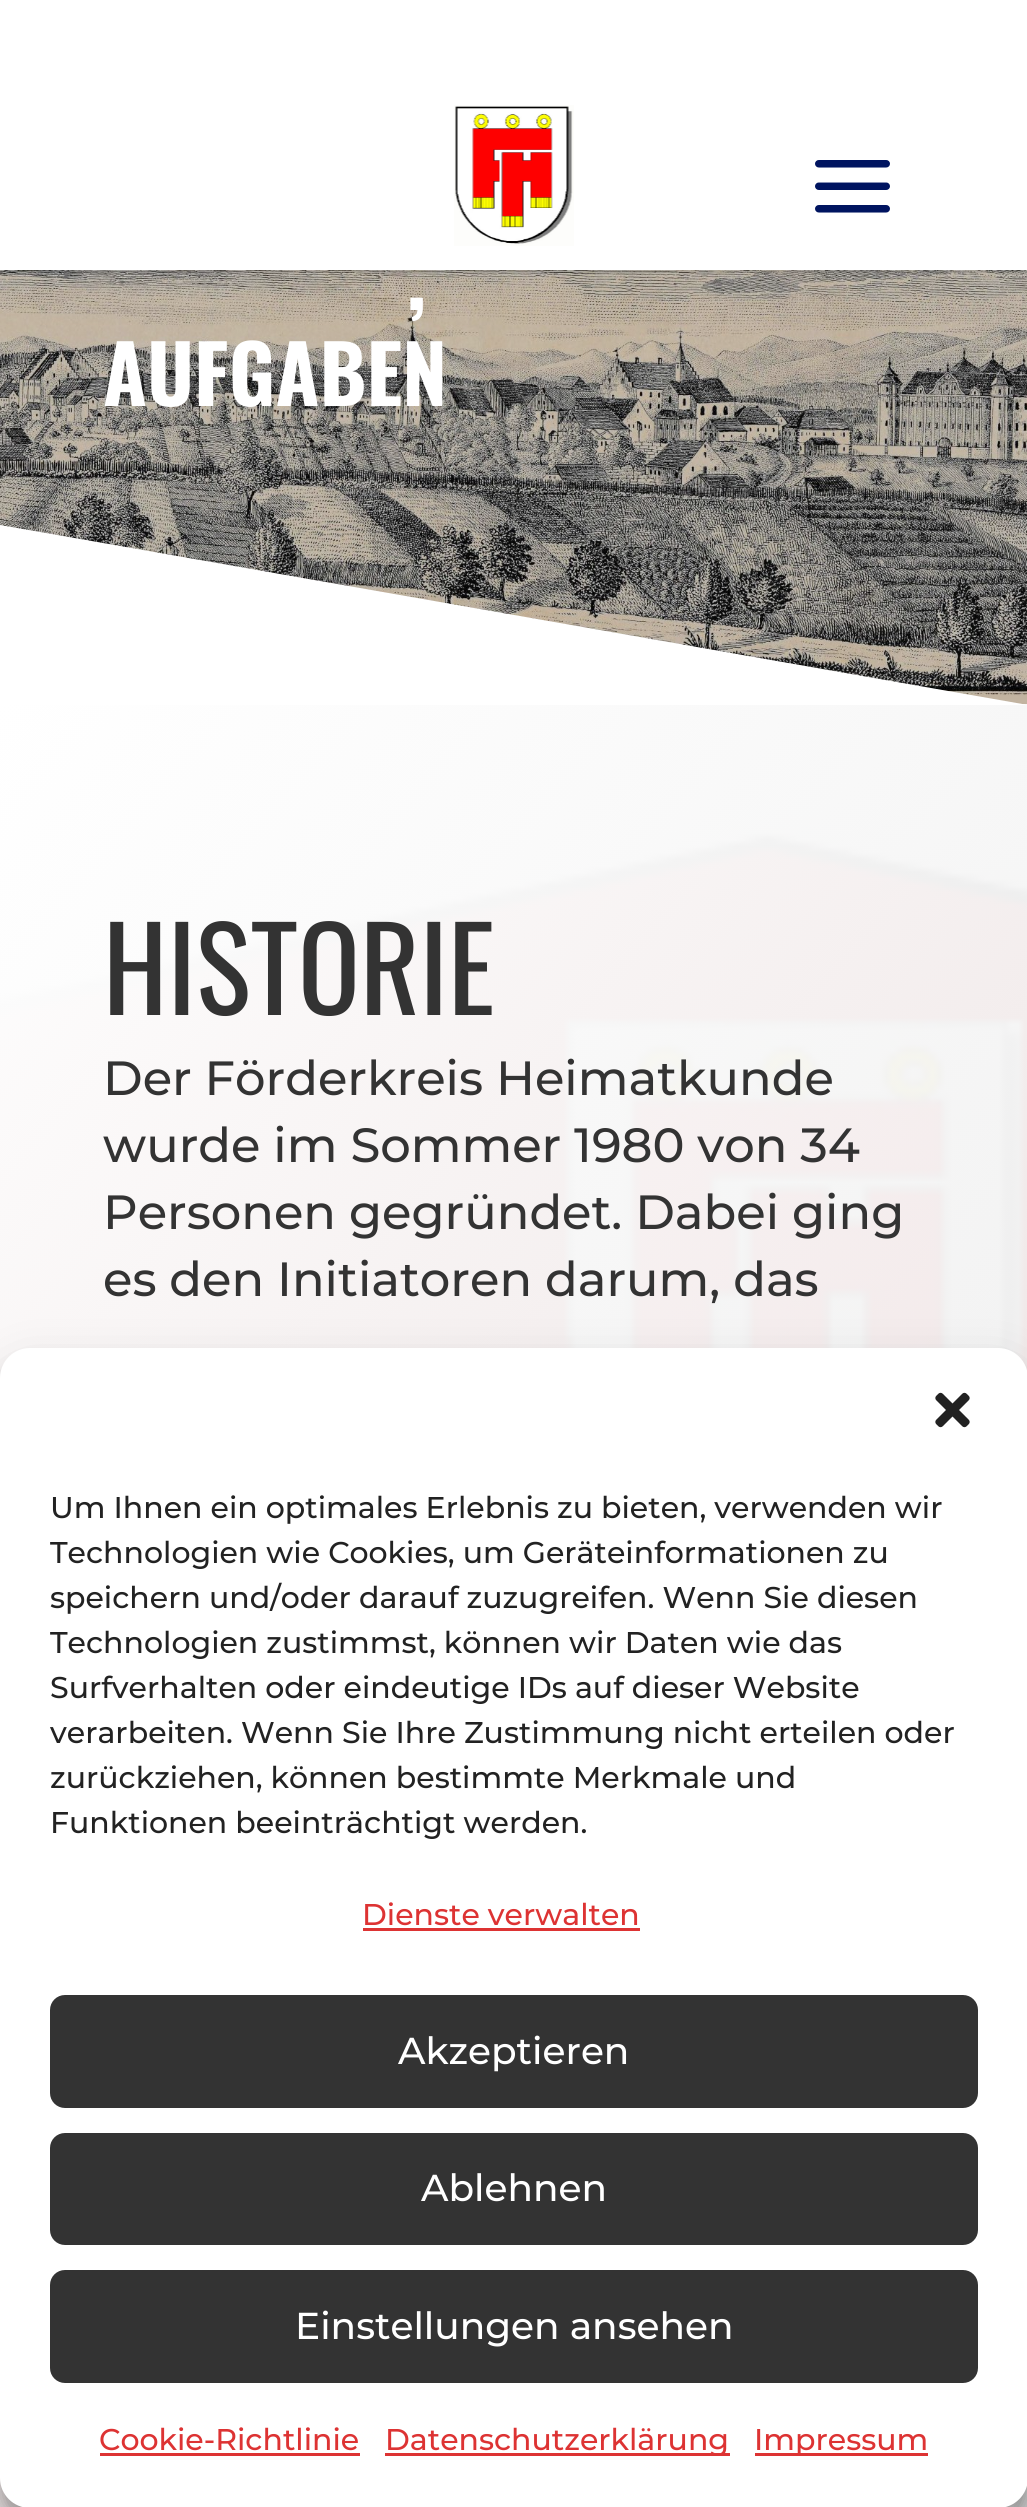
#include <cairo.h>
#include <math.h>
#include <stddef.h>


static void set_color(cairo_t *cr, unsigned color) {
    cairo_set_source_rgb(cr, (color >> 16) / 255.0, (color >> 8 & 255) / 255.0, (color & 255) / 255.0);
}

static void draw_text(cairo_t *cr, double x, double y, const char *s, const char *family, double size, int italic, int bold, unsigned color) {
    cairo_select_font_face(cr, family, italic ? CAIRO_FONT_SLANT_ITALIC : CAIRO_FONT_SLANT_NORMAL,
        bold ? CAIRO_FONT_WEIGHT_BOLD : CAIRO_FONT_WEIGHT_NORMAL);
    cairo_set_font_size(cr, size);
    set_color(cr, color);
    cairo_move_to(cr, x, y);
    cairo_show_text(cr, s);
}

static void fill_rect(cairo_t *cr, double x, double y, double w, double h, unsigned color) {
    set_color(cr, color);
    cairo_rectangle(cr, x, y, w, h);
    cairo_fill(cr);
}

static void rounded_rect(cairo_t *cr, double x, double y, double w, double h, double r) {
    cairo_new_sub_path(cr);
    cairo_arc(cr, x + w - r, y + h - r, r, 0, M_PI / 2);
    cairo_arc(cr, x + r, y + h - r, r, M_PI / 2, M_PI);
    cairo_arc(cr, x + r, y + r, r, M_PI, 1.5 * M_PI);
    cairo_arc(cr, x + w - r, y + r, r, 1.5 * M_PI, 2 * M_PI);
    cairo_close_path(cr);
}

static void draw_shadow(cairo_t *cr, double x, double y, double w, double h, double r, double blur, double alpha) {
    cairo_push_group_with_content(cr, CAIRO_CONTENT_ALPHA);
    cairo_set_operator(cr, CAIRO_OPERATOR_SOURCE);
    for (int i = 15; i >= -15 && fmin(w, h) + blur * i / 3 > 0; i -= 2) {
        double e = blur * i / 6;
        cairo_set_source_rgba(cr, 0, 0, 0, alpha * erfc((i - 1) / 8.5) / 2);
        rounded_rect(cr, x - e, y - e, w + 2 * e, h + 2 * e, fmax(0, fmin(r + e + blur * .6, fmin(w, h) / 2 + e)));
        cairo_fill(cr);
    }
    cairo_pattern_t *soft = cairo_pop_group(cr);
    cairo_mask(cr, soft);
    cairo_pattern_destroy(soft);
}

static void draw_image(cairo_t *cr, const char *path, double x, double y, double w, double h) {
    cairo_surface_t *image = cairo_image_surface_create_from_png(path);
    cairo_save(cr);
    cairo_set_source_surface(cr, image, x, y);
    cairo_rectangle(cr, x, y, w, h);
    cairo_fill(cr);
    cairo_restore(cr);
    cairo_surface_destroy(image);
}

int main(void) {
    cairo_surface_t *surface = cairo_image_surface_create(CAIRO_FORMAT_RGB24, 1027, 2507);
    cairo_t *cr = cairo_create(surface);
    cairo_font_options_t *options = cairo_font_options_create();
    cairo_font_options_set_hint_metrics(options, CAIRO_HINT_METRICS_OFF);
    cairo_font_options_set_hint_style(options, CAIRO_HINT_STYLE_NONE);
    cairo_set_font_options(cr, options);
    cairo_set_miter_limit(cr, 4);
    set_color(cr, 0xFFFFFF);
    cairo_paint(cr);
    draw_image(cr, "assets/img3.png", 0, 270, 1027, 435);
    cairo_set_source_rgba(cr, 0, 0, 0, 0.1);
    cairo_new_path(cr);
    cairo_move_to(cr, 0, 270);
    cairo_line_to(cr, 0, 273);
    cairo_line_to(cr, 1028, 273);
    cairo_line_to(cr, 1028, 3);
    cairo_line_to(cr, 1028, 270);
    cairo_close_path(cr);
    cairo_fill(cr);
    draw_image(cr, "assets/img1.png", 454, 105, 120, 141);
    draw_image(cr, "assets/img2.png", 815, 160, 75, 53);
    draw_text(cr, 407, 310, ",", "Oswald", 80, 0, 1, 0xFFFFFF);
    draw_text(cr, 103, 406, "AUFGABEN", "Oswald", 80, 0, 1, 0xFFFFFF);
    draw_image(cr, "assets/img4.png", 0, 704, 1027, 1803);
    cairo_new_path(cr);
    cairo_move_to(cr, 0, 525);
    cairo_line_to(cr, 0, 705);
    cairo_line_to(cr, 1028, 705);
    cairo_close_path(cr);
    cairo_fill(cr);
    draw_text(cr, 103, 1015, "HISTORIE", "Oswald", 115, 0, 0, 0x333333);
    draw_text(cr, 103, 1095, "Der Förderkreis Heimatkunde", "Montserrat Medium", 48, 0, 0, 0x333333);
    draw_text(cr, 103, 1162, "wurde im Sommer 1980 von 34", "Montserrat Medium", 48, 0, 0, 0x333333);
    draw_text(cr, 103, 1229, "Personen gegründet. Dabei ging", "Montserrat Medium", 48, 0, 0, 0x333333);
    draw_text(cr, 103, 1296, "es den Initiatoren darum, das", "Montserrat Medium", 48, 0, 0, 0x333333);
    set_color(cr, 0x000000);
    draw_shadow(cr, 0, 1363, 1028, 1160, 30, 7.5, 0.23);
    draw_shadow(cr, 0, 1373, 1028, 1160, 30, 25, 0.19);
    set_color(cr, 0xFFFFFF);
    rounded_rect(cr, 0, 1348, 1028, 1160, 30);
    cairo_fill(cr);
    draw_image(cr, "assets/img5.png", 935, 1392, 35, 36);
    draw_text(cr, 50, 1518, "Um Ihnen ein optimales Erlebnis zu bieten, verwenden wir", "Montserrat Medium", 30, 0, 0, 0x222222);
    draw_text(cr, 50, 1563, "Technologien wie Cookies, um Geräteinformationen zu", "Montserrat Medium", 30, 0, 0, 0x222222);
    draw_text(cr, 50, 1608, "speichern und/oder darauf zuzugreifen. Wenn Sie diesen", "Montserrat Medium", 30, 0, 0, 0x222222);
    draw_text(cr, 50, 1653, "Technologien zustimmst, können wir Daten wie das", "Montserrat Medium", 30, 0, 0, 0x222222);
    draw_text(cr, 50, 1698, "Surfverhalten oder eindeutige IDs auf dieser Website", "Montserrat Medium", 30, 0, 0, 0x222222);
    draw_text(cr, 50, 1743, "verarbeiten. Wenn Sie Ihre Zustimmung nicht erteilen oder", "Montserrat Medium", 30, 0, 0, 0x222222);
    draw_text(cr, 50, 1788, "zurückziehen, können bestimmte Merkmale und", "Montserrat Medium", 30, 0, 0, 0x222222);
    draw_text(cr, 50, 1833, "Funktionen beeinträchtigt werden.", "Montserrat Medium", 30, 0, 0, 0x222222);
    draw_text(cr, 362, 1925, "Dienste verwalten", "Montserrat Medium", 30, 0, 0, 0xDD3333);
    fill_rect(cr, 363, 1928, 277, 3, 0xDD3333);
    set_color(cr, 0x333333);
    rounded_rect(cr, 51.5, 1996.5, 925, 110, 13.5);
    cairo_fill_preserve(cr);
    cairo_set_line_width(cr, 3);
    cairo_stroke(cr);
    draw_text(cr, 398, 2064, "Akzeptieren", "Montserrat Medium", 37.5, 0, 0, 0xFFFFFF);
    set_color(cr, 0x333333);
    rounded_rect(cr, 51.5, 2134.5, 925, 109, 13.5);
    cairo_fill_preserve(cr);
    cairo_stroke(cr);
    draw_text(cr, 421, 2201, "Ablehnen", "Montserrat Medium", 37.5, 0, 0, 0xFFFFFF);
    set_color(cr, 0x333333);
    rounded_rect(cr, 51.5, 2271.5, 925, 110, 13.5);
    cairo_fill_preserve(cr);
    cairo_stroke(cr);
    draw_text(cr, 295, 2339, "Einstellungen ansehen", "Montserrat Medium", 37.5, 0, 0, 0xFFFFFF);
    draw_text(cr, 99, 2450, "Cookie-Richtlinie", "Montserrat Medium", 30, 0, 0, 0xDD3333);
    fill_rect(cr, 100, 2453, 260, 3, 0xDD3333);
    fill_rect(cr, 385, 2453, 345, 3, 0xDD3333);
    draw_text(cr, 385, 2450, "Datenschutzerklärung", "Montserrat Medium", 30, 0, 0, 0xDD3333);
    fill_rect(cr, 755, 2453, 173, 3, 0xDD3333);
    draw_text(cr, 754, 2450, "Impressum", "Montserrat Medium", 30, 0, 0, 0xDD3333);
    cairo_surface_write_to_png(surface, "output.png");
    cairo_font_options_destroy(options);
    cairo_destroy(cr);
    cairo_surface_destroy(surface);
    return 0;
}
